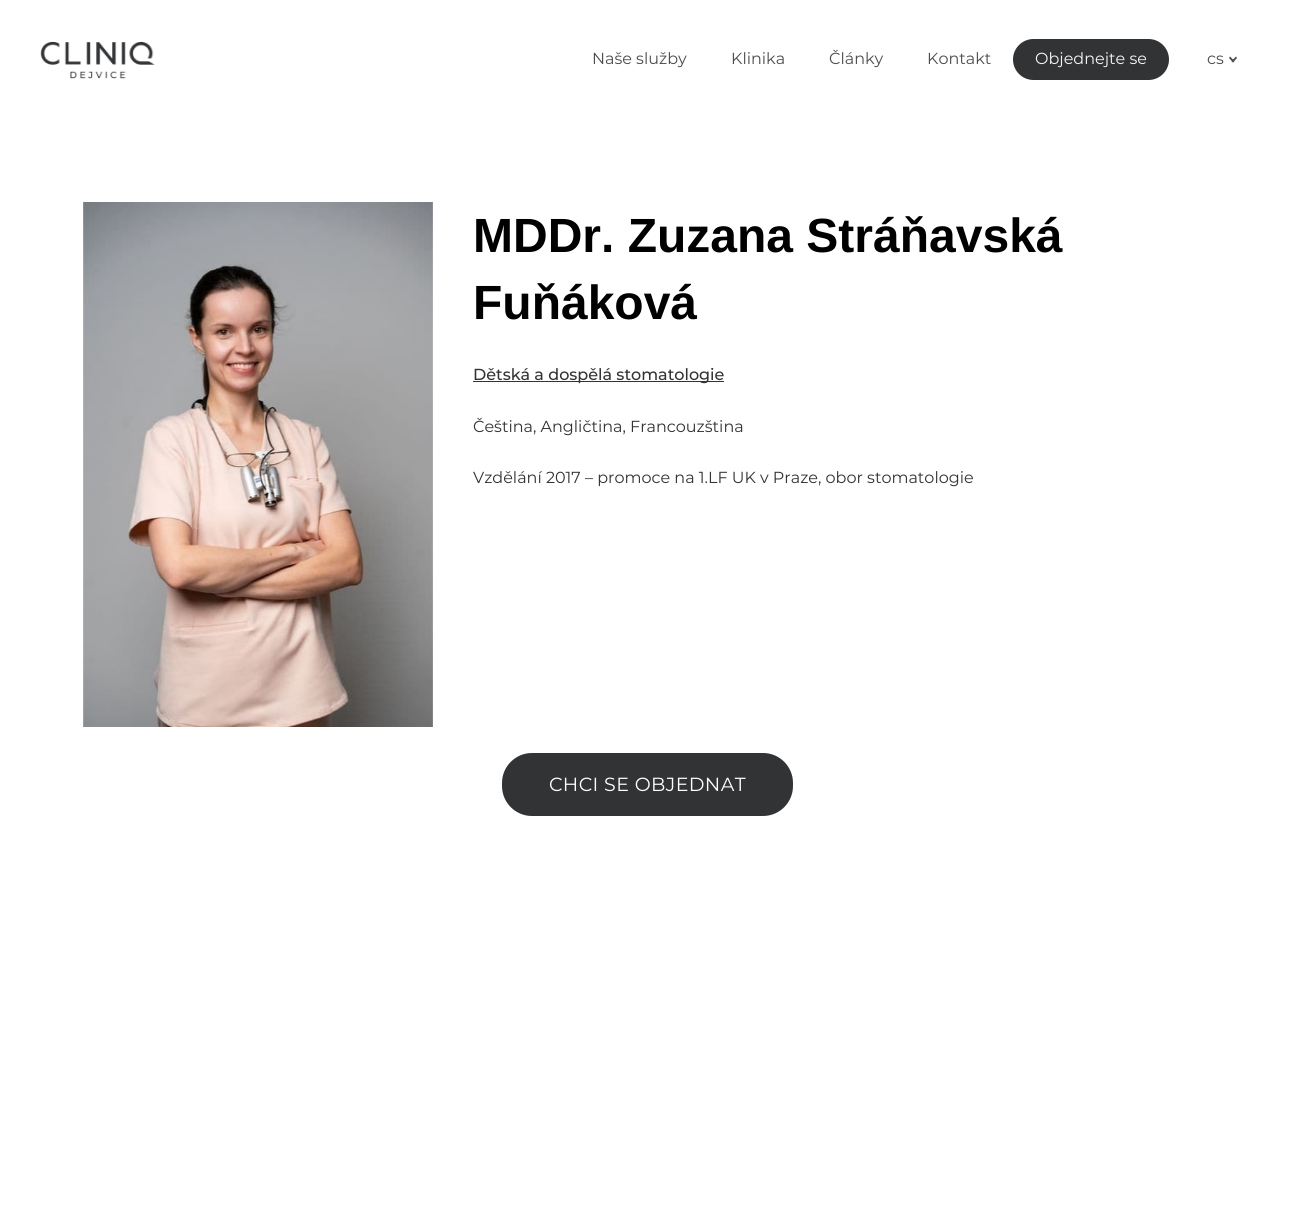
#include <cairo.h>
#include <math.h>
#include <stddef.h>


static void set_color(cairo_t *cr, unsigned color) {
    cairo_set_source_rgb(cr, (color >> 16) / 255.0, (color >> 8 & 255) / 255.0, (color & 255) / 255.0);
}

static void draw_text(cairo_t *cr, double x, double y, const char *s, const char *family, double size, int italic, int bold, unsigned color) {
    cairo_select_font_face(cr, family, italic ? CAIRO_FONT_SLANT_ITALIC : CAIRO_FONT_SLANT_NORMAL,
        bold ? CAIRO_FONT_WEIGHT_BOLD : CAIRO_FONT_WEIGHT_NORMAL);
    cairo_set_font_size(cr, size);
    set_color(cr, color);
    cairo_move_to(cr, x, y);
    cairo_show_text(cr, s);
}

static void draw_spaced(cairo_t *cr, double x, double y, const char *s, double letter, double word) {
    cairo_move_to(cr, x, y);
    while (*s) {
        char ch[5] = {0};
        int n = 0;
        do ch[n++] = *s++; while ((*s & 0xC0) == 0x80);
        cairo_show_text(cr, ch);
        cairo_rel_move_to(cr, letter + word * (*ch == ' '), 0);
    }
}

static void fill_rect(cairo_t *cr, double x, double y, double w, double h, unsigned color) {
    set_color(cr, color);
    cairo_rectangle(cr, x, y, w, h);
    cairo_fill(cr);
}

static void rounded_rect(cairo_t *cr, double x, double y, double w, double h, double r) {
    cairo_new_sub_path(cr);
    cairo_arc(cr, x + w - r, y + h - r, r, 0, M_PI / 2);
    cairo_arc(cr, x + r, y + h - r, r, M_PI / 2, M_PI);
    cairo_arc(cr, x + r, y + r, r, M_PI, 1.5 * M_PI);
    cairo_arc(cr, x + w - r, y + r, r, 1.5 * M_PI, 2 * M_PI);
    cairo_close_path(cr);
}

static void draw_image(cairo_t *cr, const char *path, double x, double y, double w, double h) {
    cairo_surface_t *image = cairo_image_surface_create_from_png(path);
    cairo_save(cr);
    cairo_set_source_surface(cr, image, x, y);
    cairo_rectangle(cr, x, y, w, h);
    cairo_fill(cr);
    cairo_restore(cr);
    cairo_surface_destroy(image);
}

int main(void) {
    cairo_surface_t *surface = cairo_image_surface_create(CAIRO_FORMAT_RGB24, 1295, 1217);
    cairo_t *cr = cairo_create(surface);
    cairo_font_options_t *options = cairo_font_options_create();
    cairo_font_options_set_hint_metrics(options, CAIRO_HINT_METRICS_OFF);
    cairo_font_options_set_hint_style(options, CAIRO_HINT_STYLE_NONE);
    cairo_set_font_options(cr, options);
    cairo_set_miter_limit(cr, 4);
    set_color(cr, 0xFFFFFF);
    cairo_paint(cr);
    draw_image(cr, "assets/img1.png", 40, 41, 115, 38);
    draw_text(cr, 592, 64, "Naše služby", "Montserrat", 16, 0, 0, 0x4D4D4D);
    draw_text(cr, 731, 64, "Klinika", "Montserrat", 16, 0, 0, 0x4D4D4D);
    draw_text(cr, 829, 64, "Články", "Montserrat", 16, 0, 0, 0x4D4D4D);
    draw_text(cr, 927, 64, "Kontakt", "Montserrat", 16, 0, 0, 0x4D4D4D);
    set_color(cr, 0x313335);
    rounded_rect(cr, 1013, 39, 156, 41, 20.5);
    cairo_fill(cr);
    draw_text(cr, 1035, 64, "Objednejte se", "Montserrat", 16, 0, 0, 0xF5F5F5);
    draw_text(cr, 1207, 64, "cs", "Montserrat", 16, 0, 0, 0x4D4D4D);
    cairo_new_path(cr);
    cairo_move_to(cr, 1236, 56.5);
    cairo_line_to(cr, 1237, 58);
    cairo_line_to(cr, 1233, 62.5);
    cairo_line_to(cr, 1231.5, 61);
    cairo_close_path(cr);
    cairo_fill(cr);
    cairo_new_path(cr);
    cairo_move_to(cr, 1230, 56.5);
    cairo_line_to(cr, 1234.5, 61);
    cairo_line_to(cr, 1233, 62.5);
    cairo_line_to(cr, 1229, 58);
    cairo_close_path(cr);
    cairo_fill(cr);
    draw_image(cr, "assets/img2.png", 83, 202, 350, 525);
    draw_text(cr, 473, 252, "MDDr. Zuzana Stráňavská", "Liberation Sans", 48, 0, 1, 0x000000);
    draw_text(cr, 473, 319, "Fuňáková", "Liberation Sans", 48, 0, 1, 0x000000);
    fill_rect(cr, 473, 381, 251, 1, 0x313335);
    draw_text(cr, 473, 380, "Dětská a dospělá stomatologie", "Montserrat Medium", 16, 0, 0, 0x313335);
    draw_text(cr, 473, 432, "Čeština, Angličtina, Francouzština", "Montserrat", 16, 0, 0, 0x313335);
    draw_text(cr, 473, 483, "Vzdělání 2017 – promoce na 1.LF UK v Praze, obor stomatologie", "Montserrat", 16, 0, 0, 0x313335);
    rounded_rect(cr, 503, 754, 289, 61, 29);
    cairo_fill_preserve(cr);
    cairo_stroke(cr);
    cairo_set_font_size(cr, 19);
    set_color(cr, 0xFFFFFF);
    draw_spaced(cr, 549, 791, "CHCI SE OBJEDNAT", 0.4, 0);
    cairo_surface_write_to_png(surface, "output.png");
    cairo_font_options_destroy(options);
    cairo_destroy(cr);
    cairo_surface_destroy(surface);
    return 0;
}
